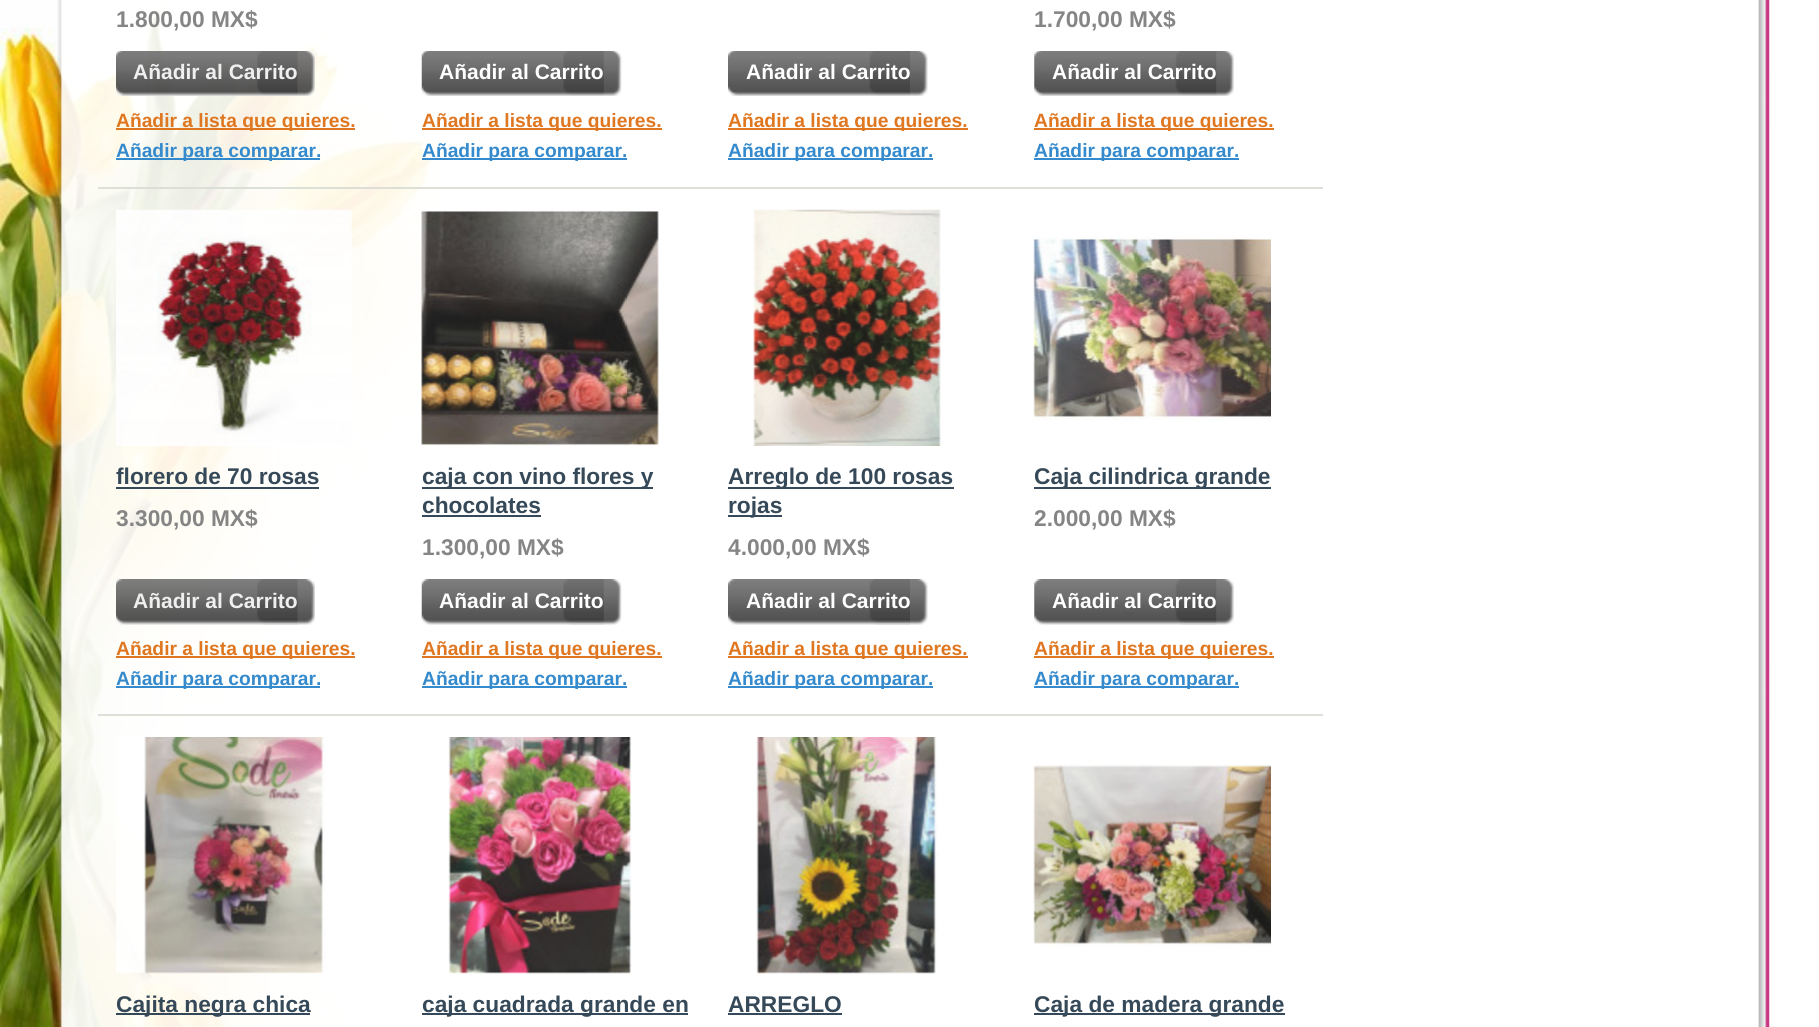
#include <cairo.h>
#include <math.h>
#include <stddef.h>


static void set_color(cairo_t *cr, unsigned color) {
    cairo_set_source_rgb(cr, (color >> 16) / 255.0, (color >> 8 & 255) / 255.0, (color & 255) / 255.0);
}

static void draw_text(cairo_t *cr, double x, double y, const char *s, const char *family, double size, int italic, int bold, unsigned color) {
    cairo_select_font_face(cr, family, italic ? CAIRO_FONT_SLANT_ITALIC : CAIRO_FONT_SLANT_NORMAL,
        bold ? CAIRO_FONT_WEIGHT_BOLD : CAIRO_FONT_WEIGHT_NORMAL);
    cairo_set_font_size(cr, size);
    set_color(cr, color);
    cairo_move_to(cr, x, y);
    cairo_show_text(cr, s);
}

static void fill_rect(cairo_t *cr, double x, double y, double w, double h, unsigned color) {
    set_color(cr, color);
    cairo_rectangle(cr, x, y, w, h);
    cairo_fill(cr);
}

static void draw_image(cairo_t *cr, const char *path, double x, double y, double w, double h) {
    cairo_surface_t *image = cairo_image_surface_create_from_png(path);
    cairo_save(cr);
    cairo_set_source_surface(cr, image, x, y);
    cairo_rectangle(cr, x, y, w, h);
    cairo_fill(cr);
    cairo_restore(cr);
    cairo_surface_destroy(image);
}

int main(void) {
    cairo_surface_t *surface = cairo_image_surface_create(CAIRO_FORMAT_RGB24, 1819, 1027);
    cairo_t *cr = cairo_create(surface);
    cairo_font_options_t *options = cairo_font_options_create();
    cairo_font_options_set_hint_metrics(options, CAIRO_HINT_METRICS_OFF);
    cairo_font_options_set_hint_style(options, CAIRO_HINT_STYLE_NONE);
    cairo_set_font_options(cr, options);
    cairo_set_miter_limit(cr, 4);
    set_color(cr, 0xFFFFFF);
    cairo_paint(cr);
    draw_image(cr, "assets/img1.png", 0, 0, 438, 1027);
    draw_image(cr, "assets/img2.png", 57, 0, 1713, 1027);
    cairo_set_source_rgba(cr, 0.851, 0.867, 0.827, 0.9);
    cairo_rectangle(cr, 98, 187, 1225, 2);
    cairo_fill(cr);
    draw_text(cr, 116, 27, "1.800,00 MX$", "Liberation Sans", 22.75, 0, 1, 0x858585);
    draw_image(cr, "assets/img3.png", 257, 51, 58, 45);
    draw_image(cr, "assets/img4.png", 116, 51, 182, 45);
    draw_text(cr, 133, 79, "Añadir al Carrito", "Liberation Sans", 21, 0, 1, 0xEFEFEF);
    cairo_set_source_rgba(cr, 0.863, 0.408, 0.035, 0.9);
    cairo_rectangle(cr, 116, 128, 239, 2);
    cairo_fill(cr);
    draw_text(cr, 116, 127, "Añadir a lista que quieres.", "Liberation Sans", 19.25, 0, 1, 0xDF7620);
    cairo_set_source_rgba(cr, 0.118, 0.494, 0.784, 0.9);
    cairo_rectangle(cr, 116, 158, 204, 2);
    cairo_fill(cr);
    draw_text(cr, 116, 157, "Añadir para comparar.", "Liberation Sans", 19.25, 0, 1, 0x348ACC);
    draw_image(cr, "assets/img5.png", 563, 51, 59, 45);
    draw_image(cr, "assets/img6.png", 421, 51, 183, 45);
    draw_text(cr, 439, 79, "Añadir al Carrito", "Liberation Sans", 21, 0, 1, 0xFFFFFF);
    fill_rect(cr, 422, 128, 240, 2, 0xDF7722);
    draw_text(cr, 422, 127, "Añadir a lista que quieres.", "Liberation Sans", 19.25, 0, 1, 0xDF7620);
    cairo_set_source_rgba(cr, 0.118, 0.494, 0.784, 0.9);
    cairo_rectangle(cr, 422, 158, 205, 2);
    cairo_fill(cr);
    draw_text(cr, 422, 157, "Añadir para comparar.", "Liberation Sans", 19.25, 0, 1, 0x348ACC);
    draw_image(cr, "assets/img7.png", 869, 51, 59, 45);
    draw_image(cr, "assets/img8.png", 728, 51, 182, 45);
    draw_text(cr, 746, 79, "Añadir al Carrito", "Liberation Sans", 21, 0, 1, 0xFFFFFF);
    fill_rect(cr, 728, 128, 240, 2, 0xE07722);
    draw_text(cr, 728, 127, "Añadir a lista que quieres.", "Liberation Sans", 19.25, 0, 1, 0xDF7620);
    fill_rect(cr, 728, 158, 205, 2, 0x358BCE);
    draw_text(cr, 728, 157, "Añadir para comparar.", "Liberation Sans", 19.25, 0, 1, 0x348ACC);
    draw_text(cr, 1034, 27, "1.700,00 MX$", "Liberation Sans", 22.75, 0, 1, 0x858585);
    draw_image(cr, "assets/img9.png", 1175, 51, 59, 45);
    draw_image(cr, "assets/img10.png", 1034, 51, 183, 45);
    draw_text(cr, 1052, 79, "Añadir al Carrito", "Liberation Sans", 21, 0, 1, 0xFFFFFF);
    fill_rect(cr, 1034, 128, 240, 2, 0xE07722);
    draw_text(cr, 1034, 127, "Añadir a lista que quieres.", "Liberation Sans", 19.25, 0, 1, 0xDF7620);
    fill_rect(cr, 1034, 158, 205, 2, 0x358BCE);
    draw_text(cr, 1034, 157, "Añadir para comparar.", "Liberation Sans", 19.25, 0, 1, 0x348ACC);
    cairo_set_source_rgba(cr, 0.851, 0.867, 0.827, 0.9);
    cairo_rectangle(cr, 98, 714, 1225, 2);
    cairo_fill(cr);
    draw_image(cr, "assets/img11.png", 116, 209, 236, 237);
    draw_text(cr, 116, 484, "florero de", "Liberation Sans", 22.75, 0, 1, 0x364959);
    cairo_set_source_rgba(cr, 0.125, 0.208, 0.282, 0.9);
    cairo_rectangle(cr, 116, 487, 78, 2);
    cairo_fill(cr);
    draw_text(cr, 227, 484, "70 rosas", "Liberation Sans", 22.75, 0, 1, 0x364959);
    cairo_set_source_rgba(cr, 0.125, 0.208, 0.282, 0.9);
    cairo_rectangle(cr, 194, 487, 34, 2);
    cairo_fill(cr);
    cairo_rectangle(cr, 228, 487, 31, 2);
    cairo_fill(cr);
    cairo_rectangle(cr, 259, 487, 60, 2);
    cairo_fill(cr);
    draw_text(cr, 116, 526, "3.300,00 MX$", "Liberation Sans", 22.75, 0, 1, 0x858585);
    draw_image(cr, "assets/img12.png", 257, 579, 58, 46);
    draw_image(cr, "assets/img13.png", 116, 579, 182, 46);
    draw_text(cr, 133, 608, "Añadir al Carrito", "Liberation Sans", 21, 0, 1, 0xEFEFEF);
    cairo_set_source_rgba(cr, 0.863, 0.408, 0.035, 0.9);
    cairo_rectangle(cr, 116, 656, 239, 2);
    cairo_fill(cr);
    draw_text(cr, 116, 655, "Añadir a lista que quieres.", "Liberation Sans", 19.25, 0, 1, 0xDF7620);
    cairo_set_source_rgba(cr, 0.118, 0.494, 0.784, 0.9);
    cairo_rectangle(cr, 116, 686, 204, 2);
    cairo_fill(cr);
    draw_text(cr, 116, 685, "Añadir para comparar.", "Liberation Sans", 19.25, 0, 1, 0x348ACC);
    draw_image(cr, "assets/img14.png", 421, 210, 238, 236);
    fill_rect(cr, 422, 487, 231, 2, 0x36495A);
    draw_text(cr, 422, 484, "caja con vino flores y", "Liberation Sans", 22.75, 0, 1, 0x364959);
    draw_text(cr, 422, 513, "chocolates", "Liberation Sans", 22.75, 0, 1, 0x364959);
    fill_rect(cr, 422, 515, 119, 2, 0x36495A);
    draw_text(cr, 422, 555, "1.300,00 MX$", "Liberation Sans", 22.75, 0, 1, 0x858585);
    draw_image(cr, "assets/img15.png", 563, 579, 59, 46);
    draw_image(cr, "assets/img16.png", 421, 579, 183, 46);
    draw_text(cr, 439, 608, "Añadir al Carrito", "Liberation Sans", 21, 0, 1, 0xFFFFFF);
    fill_rect(cr, 422, 656, 240, 2, 0xDF7722);
    draw_text(cr, 422, 655, "Añadir a lista que quieres.", "Liberation Sans", 19.25, 0, 1, 0xDF7620);
    fill_rect(cr, 422, 686, 205, 2, 0x348BCD);
    draw_text(cr, 422, 685, "Añadir para comparar.", "Liberation Sans", 19.25, 0, 1, 0x348ACC);
    draw_image(cr, "assets/img17.png", 753, 209, 188, 237);
    fill_rect(cr, 728, 487, 226, 2, 0x36495A);
    draw_text(cr, 728, 484, "Arreglo de 100 rosas", "Liberation Sans", 22.75, 0, 1, 0x364959);
    fill_rect(cr, 728, 515, 54, 2, 0x36495A);
    draw_text(cr, 728, 513, "rojas", "Liberation Sans", 22.75, 0, 1, 0x364959);
    draw_text(cr, 728, 555, "4.000,00 MX$", "Liberation Sans", 22.75, 0, 1, 0x858585);
    draw_image(cr, "assets/img18.png", 869, 579, 59, 46);
    draw_image(cr, "assets/img19.png", 728, 579, 182, 46);
    draw_text(cr, 746, 608, "Añadir al Carrito", "Liberation Sans", 21, 0, 1, 0xFFFFFF);
    fill_rect(cr, 728, 656, 240, 2, 0xE07722);
    draw_text(cr, 728, 655, "Añadir a lista que quieres.", "Liberation Sans", 19.25, 0, 1, 0xDF7620);
    fill_rect(cr, 728, 686, 205, 2, 0x358BCE);
    draw_text(cr, 728, 685, "Añadir para comparar.", "Liberation Sans", 19.25, 0, 1, 0x348ACC);
    draw_image(cr, "assets/img20.png", 1033, 237, 238, 183);
    fill_rect(cr, 1034, 487, 237, 2, 0x36495A);
    draw_text(cr, 1034, 484, "Caja cilindrica grande", "Liberation Sans", 22.75, 0, 1, 0x364959);
    draw_text(cr, 1034, 526, "2.000,00 MX$", "Liberation Sans", 22.75, 0, 1, 0x858585);
    draw_image(cr, "assets/img21.png", 1175, 579, 59, 46);
    draw_image(cr, "assets/img22.png", 1034, 579, 183, 46);
    draw_text(cr, 1052, 608, "Añadir al Carrito", "Liberation Sans", 21, 0, 1, 0xFFFFFF);
    fill_rect(cr, 1034, 656, 240, 2, 0xE07722);
    draw_text(cr, 1034, 655, "Añadir a lista que quieres.", "Liberation Sans", 19.25, 0, 1, 0xDF7620);
    fill_rect(cr, 1034, 686, 205, 2, 0x358BCE);
    draw_text(cr, 1034, 685, "Añadir para comparar.", "Liberation Sans", 19.25, 0, 1, 0x348ACC);
    draw_image(cr, "assets/img23.png", 116, 737, 210, 237);
    cairo_set_source_rgba(cr, 0.125, 0.208, 0.282, 0.9);
    cairo_rectangle(cr, 116, 1013, 194, 2);
    cairo_fill(cr);
    draw_text(cr, 116, 1012, "Cajita negra chica", "Liberation Sans", 22.75, 0, 1, 0x364959);
    draw_image(cr, "assets/img24.png", 448, 737, 184, 237);
    fill_rect(cr, 422, 1013, 266, 2, 0x36495A);
    draw_text(cr, 422, 1012, "caja cuadrada grande en", "Liberation Sans", 22.75, 0, 1, 0x364959);
    draw_image(cr, "assets/img25.png", 756, 737, 182, 237);
    draw_text(cr, 728, 1012, "ARREGLO", "Liberation Sans", 22.75, 0, 1, 0x364959);
    fill_rect(cr, 728, 1013, 114, 2, 0x36495A);
    draw_image(cr, "assets/img26.png", 1033, 764, 238, 183);
    fill_rect(cr, 1034, 1013, 251, 2, 0x36495A);
    draw_text(cr, 1034, 1012, "Caja de madera grande", "Liberation Sans", 22.75, 0, 1, 0x364959);
    cairo_surface_write_to_png(surface, "output.png");
    cairo_font_options_destroy(options);
    cairo_destroy(cr);
    cairo_surface_destroy(surface);
    return 0;
}
